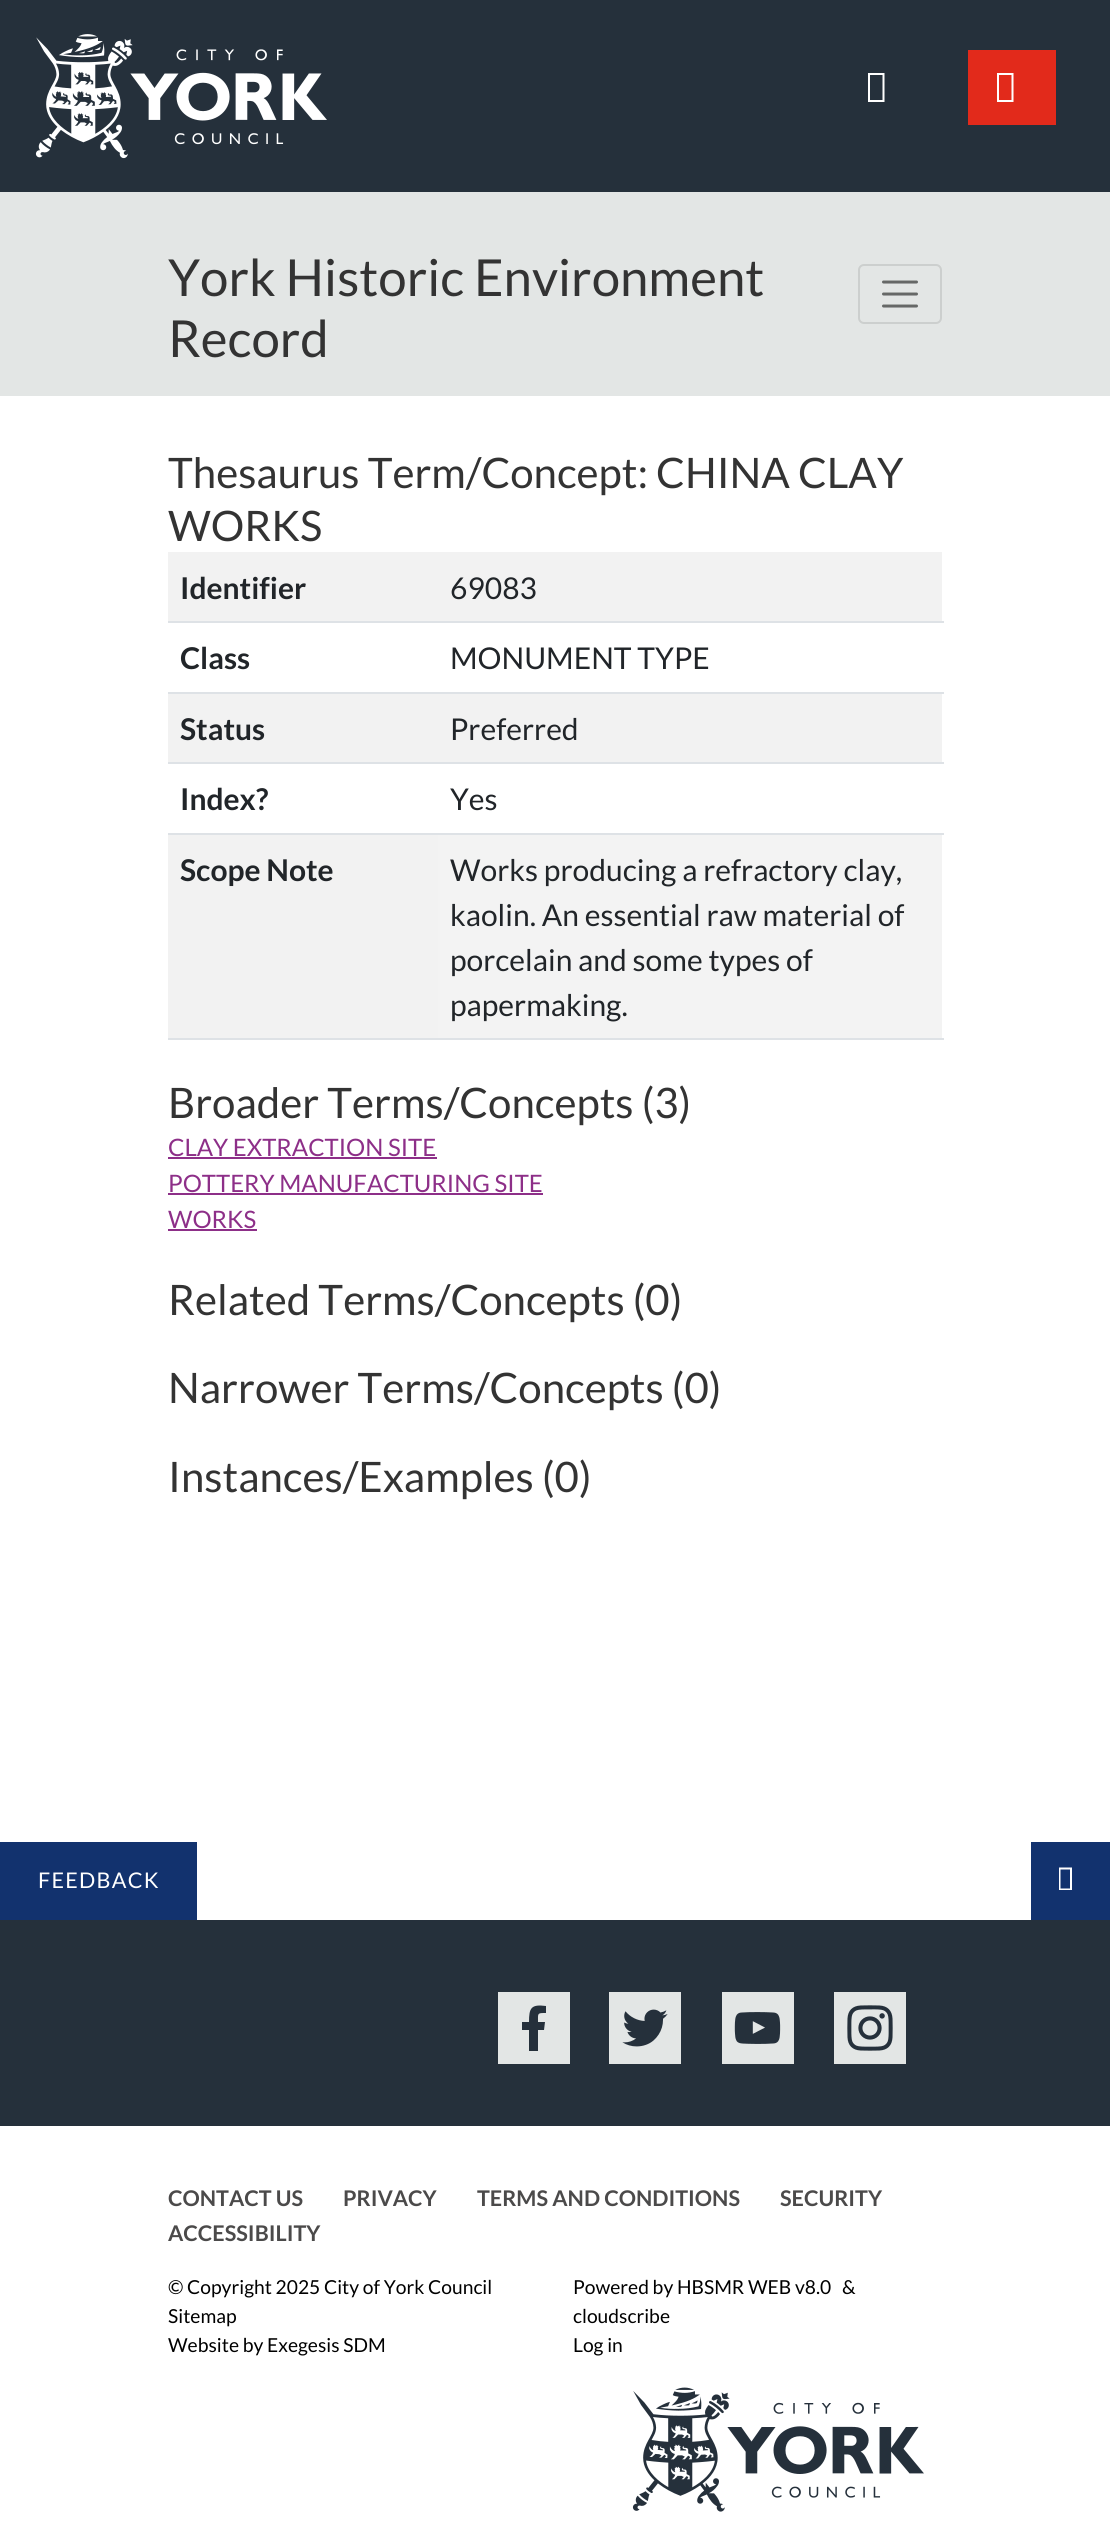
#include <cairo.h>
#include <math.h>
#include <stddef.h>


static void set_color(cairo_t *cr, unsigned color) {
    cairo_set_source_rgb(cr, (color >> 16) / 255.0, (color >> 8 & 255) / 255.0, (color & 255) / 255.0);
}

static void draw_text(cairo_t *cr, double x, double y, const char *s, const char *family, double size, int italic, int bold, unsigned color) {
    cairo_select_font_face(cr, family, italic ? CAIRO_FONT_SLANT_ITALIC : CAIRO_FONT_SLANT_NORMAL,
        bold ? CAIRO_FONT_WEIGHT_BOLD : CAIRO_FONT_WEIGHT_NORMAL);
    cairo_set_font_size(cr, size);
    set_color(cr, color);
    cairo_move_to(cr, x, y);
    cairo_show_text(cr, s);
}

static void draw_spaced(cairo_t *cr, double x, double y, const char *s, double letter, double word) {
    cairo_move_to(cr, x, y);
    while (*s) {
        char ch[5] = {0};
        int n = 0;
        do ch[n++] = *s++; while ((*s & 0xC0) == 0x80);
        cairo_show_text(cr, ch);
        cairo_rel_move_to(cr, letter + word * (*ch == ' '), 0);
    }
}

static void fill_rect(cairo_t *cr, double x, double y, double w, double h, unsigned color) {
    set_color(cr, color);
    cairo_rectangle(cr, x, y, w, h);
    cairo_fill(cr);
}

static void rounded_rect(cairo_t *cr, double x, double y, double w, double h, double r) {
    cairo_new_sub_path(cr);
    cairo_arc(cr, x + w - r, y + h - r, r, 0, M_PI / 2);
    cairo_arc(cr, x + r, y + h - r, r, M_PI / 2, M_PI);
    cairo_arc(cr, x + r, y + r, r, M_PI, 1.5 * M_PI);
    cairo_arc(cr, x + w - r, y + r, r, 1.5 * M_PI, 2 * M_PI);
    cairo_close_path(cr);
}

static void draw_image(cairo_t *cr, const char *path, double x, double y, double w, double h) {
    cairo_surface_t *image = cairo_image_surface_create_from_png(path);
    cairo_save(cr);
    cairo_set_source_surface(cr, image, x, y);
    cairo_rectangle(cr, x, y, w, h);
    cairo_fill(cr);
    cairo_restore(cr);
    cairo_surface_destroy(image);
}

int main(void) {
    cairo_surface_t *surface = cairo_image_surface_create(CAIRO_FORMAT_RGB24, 1110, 2542);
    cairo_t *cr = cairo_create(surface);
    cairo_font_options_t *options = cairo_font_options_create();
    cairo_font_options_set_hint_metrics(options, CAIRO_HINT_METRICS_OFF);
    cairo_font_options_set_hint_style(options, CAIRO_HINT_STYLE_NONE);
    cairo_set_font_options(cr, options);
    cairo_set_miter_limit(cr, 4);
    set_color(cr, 0xFFFFFF);
    cairo_paint(cr);
    fill_rect(cr, 0, 0, 1110, 192, 0x25303B);
    draw_image(cr, "assets/img1.png", 35, 34, 292, 125);
    set_color(cr, 0xFFFFFF);
    cairo_new_path(cr);
    cairo_move_to(cr, 868, 102);
    cairo_line_to(cr, 868, 73);
    cairo_line_to(cr, 884.5, 73);
    cairo_line_to(cr, 884.5, 102);
    cairo_close_path(cr);
    cairo_move_to(cr, 870, 100);
    cairo_line_to(cr, 882.5, 100);
    cairo_line_to(cr, 882.5, 75);
    cairo_line_to(cr, 870, 75);
    cairo_close_path(cr);
    cairo_fill(cr);
    fill_rect(cr, 968, 50, 88, 75, 0xE22A1B);
    set_color(cr, 0xFFFFFF);
    cairo_new_path(cr);
    cairo_move_to(cr, 997, 102);
    cairo_line_to(cr, 997, 73);
    cairo_line_to(cr, 1013.5, 73);
    cairo_line_to(cr, 1013.5, 102);
    cairo_close_path(cr);
    cairo_move_to(cr, 999, 100);
    cairo_line_to(cr, 1011.5, 100);
    cairo_line_to(cr, 1011.5, 75);
    cairo_line_to(cr, 999, 75);
    cairo_close_path(cr);
    cairo_fill(cr);
    fill_rect(cr, 0, 192, 1110, 204, 0xE3E6E5);
    draw_text(cr, 168, 296, "York Historic Environment", "Lato", 51, 0, 0, 0x333333);
    draw_text(cr, 168, 357, "Record", "Lato", 51, 0, 0, 0x333333);
    rounded_rect(cr, 859, 265, 82, 58, 5);
    set_color(cr, 0xCCCFCE);
    cairo_stroke(cr);
    cairo_new_path(cr);
    cairo_move_to(cr, 883.5, 282);
    cairo_line_to(cr, 916.5, 282);
    cairo_move_to(cr, 883.5, 294);
    cairo_line_to(cr, 916.5, 294);
    cairo_move_to(cr, 883.5, 306);
    cairo_line_to(cr, 916.5, 306);
    set_color(cr, 0x666867);
    cairo_set_line_width(cr, 3);
    cairo_set_line_cap(cr, CAIRO_LINE_CAP_ROUND);
    cairo_stroke(cr);
    draw_text(cr, 168, 488, "Thesaurus Term/Concept: CHINA CLAY", "Lato", 42, 0, 0, 0x333333);
    draw_text(cr, 168, 541, "WORKS", "Lato", 42, 0, 0, 0x333333);
    fill_rect(cr, 168, 552, 774, 69, 0xF2F2F2);
    draw_text(cr, 180, 599, "Identifier", "Lato", 30, 0, 1, 0x212529);
    fill_rect(cr, 168, 621, 776, 2, 0xDEE2E6);
    draw_text(cr, 450, 599, "69083", "Lato", 30, 0, 0, 0x212529);
    draw_text(cr, 180, 669, "Class", "Lato", 30, 0, 1, 0x212529);
    fill_rect(cr, 168, 692, 776, 2, 0xDEE2E6);
    draw_text(cr, 450, 669, "MONUMENT TYPE", "Lato", 30, 0, 0, 0x212529);
    fill_rect(cr, 168, 694, 774, 68, 0xF2F2F2);
    draw_text(cr, 180, 740, "Status", "Lato", 30, 0, 1, 0x212529);
    fill_rect(cr, 168, 762, 776, 2, 0xDEE2E6);
    draw_text(cr, 450, 740, "Preferred", "Lato", 30, 0, 0, 0x212529);
    draw_text(cr, 180, 810, "Index?", "Lato", 30, 0, 1, 0x212529);
    fill_rect(cr, 168, 833, 776, 2, 0xDEE2E6);
    draw_text(cr, 450, 810, "Yes", "Lato", 30, 0, 0, 0x212529);
    fill_rect(cr, 168, 835, 270, 203, 0xF2F2F2);
    draw_text(cr, 180, 881, "Scope Note", "Lato", 30, 0, 1, 0x212529);
    fill_rect(cr, 438, 835, 504, 203, 0xF3F3F3);
    fill_rect(cr, 168, 1038, 776, 2, 0xDEE2E6);
    draw_text(cr, 450, 881, "Works producing a refractory clay,", "Lato", 30, 0, 0, 0x212529);
    draw_text(cr, 450, 926, "kaolin. An essential raw material of", "Lato", 30, 0, 0, 0x212529);
    draw_text(cr, 450, 971, "porcelain and some types of", "Lato", 30, 0, 0, 0x212529);
    draw_text(cr, 450, 1016, "papermaking.", "Lato", 30, 0, 0, 0x212529);
    draw_text(cr, 168, 1118, "Broader Terms/Concepts (3)", "Lato", 42, 0, 0, 0x333333);
    draw_text(cr, 168, 1156, "CLAY EXTRACTION SITE", "Lato", 24, 0, 0, 0x8D2F88);
    fill_rect(cr, 168, 1157, 269, 2, 0x8D2F88);
    draw_text(cr, 168, 1192, "POTTERY MANUFACTURING SITE", "Lato", 24, 0, 0, 0x8D2F88);
    fill_rect(cr, 168, 1193, 375, 2, 0x8D2F88);
    draw_text(cr, 168, 1228, "WORKS", "Lato", 24, 0, 0, 0x8D2F88);
    fill_rect(cr, 168, 1229, 89, 2, 0x8D2F88);
    draw_text(cr, 168, 1315, "Related Terms/Concepts (0)", "Lato", 42, 0, 0, 0x333333);
    draw_text(cr, 168, 1403, "Narrower Terms/Concepts (0)", "Lato", 42, 0, 0, 0x333333);
    draw_text(cr, 168, 1492, "Instances/Examples (0)", "Lato", 42, 0, 0, 0x333333);
    fill_rect(cr, 0, 1842, 197, 78, 0x12326E);
    cairo_set_font_size(cr, 21.6);
    set_color(cr, 0xFFFFFF);
    draw_spaced(cr, 38, 1888, "FEEDBACK", 1.25, 0);
    fill_rect(cr, 1031, 1842, 79, 78, 0x12326E);
    set_color(cr, 0xFFFFFF);
    cairo_new_path(cr);
    cairo_move_to(cr, 1059, 1890);
    cairo_line_to(cr, 1059, 1867.5);
    cairo_line_to(cr, 1072, 1867.5);
    cairo_line_to(cr, 1072, 1890);
    cairo_close_path(cr);
    cairo_move_to(cr, 1060.5, 1888.5);
    cairo_line_to(cr, 1070, 1888.5);
    cairo_line_to(cr, 1070, 1869.5);
    cairo_line_to(cr, 1060.5, 1869.5);
    cairo_close_path(cr);
    cairo_fill(cr);
    fill_rect(cr, 0, 1920, 1110, 206, 0x25303B);
    fill_rect(cr, 498, 1992, 72, 72, 0xE3E6E5);
    set_color(cr, 0x25303B);
    cairo_new_path(cr);
    cairo_move_to(cr, 546, 2006);
    cairo_line_to(cr, 546, 2013);
    cairo_curve_to(cr, 537, 2013, 538, 2013, 538, 2022);
    cairo_line_to(cr, 545, 2022);
    cairo_line_to(cr, 544, 2030);
    cairo_line_to(cr, 538, 2030);
    cairo_line_to(cr, 538, 2051);
    cairo_line_to(cr, 529, 2051);
    cairo_line_to(cr, 529, 2030);
    cairo_line_to(cr, 522, 2030);
    cairo_line_to(cr, 522, 2022);
    cairo_line_to(cr, 529, 2022);
    cairo_curve_to(cr, 529, 2008, 531, 2004, 546, 2006);
    cairo_close_path(cr);
    cairo_fill(cr);
    fill_rect(cr, 609, 1992, 72, 72, 0xE3E6E5);
    draw_image(cr, "assets/img2.png", 622, 2009, 46, 38);
    fill_rect(cr, 722, 1992, 72, 72, 0xE3E6E5);
    draw_image(cr, "assets/img3.png", 734, 2012, 47, 32);
    fill_rect(cr, 834, 1992, 72, 72, 0xE3E6E5);
    draw_image(cr, "assets/img4.png", 847, 2005, 46, 46);
    draw_text(cr, 168, 2206, "CONTACT US", "Lato", 21.6, 0, 1, 0x4B4A4A);
    draw_text(cr, 343, 2206, "PRIVACY", "Lato", 21.6, 0, 1, 0x4B4A4A);
    draw_text(cr, 477, 2206, "TERMS AND CONDITIONS", "Lato", 21.6, 0, 1, 0x4B4A4A);
    draw_text(cr, 780, 2206, "SECURITY", "Lato", 21.6, 0, 1, 0x4B4A4A);
    draw_text(cr, 168, 2241, "ACCESSIBILITY", "Lato", 21.6, 0, 1, 0x4B4A4A);
    draw_text(cr, 168, 2294, "© Copyright 2025 City of York Council", "Lato", 19.25, 0, 0, 0x000000);
    draw_text(cr, 168, 2323, "Sitemap", "Lato", 19.25, 0, 0, 0x000000);
    draw_text(cr, 168, 2352, "Website by Exegesis SDM", "Lato", 19.25, 0, 0, 0x000000);
    draw_text(cr, 573, 2294, "Powered by HBSMR WEB v8.0", "Lato", 19.25, 0, 0, 0x000000);
    draw_text(cr, 842, 2294, "&", "Lato", 19.25, 0, 0, 0x000000);
    draw_text(cr, 573, 2323, "cloudscribe", "Lato", 19.25, 0, 0, 0x000000);
    draw_text(cr, 573, 2352, "Log in", "Lato", 19.25, 0, 0, 0x000000);
    draw_image(cr, "assets/img5.png", 632, 2387, 292, 125);
    cairo_surface_write_to_png(surface, "output.png");
    cairo_font_options_destroy(options);
    cairo_destroy(cr);
    cairo_surface_destroy(surface);
    return 0;
}
